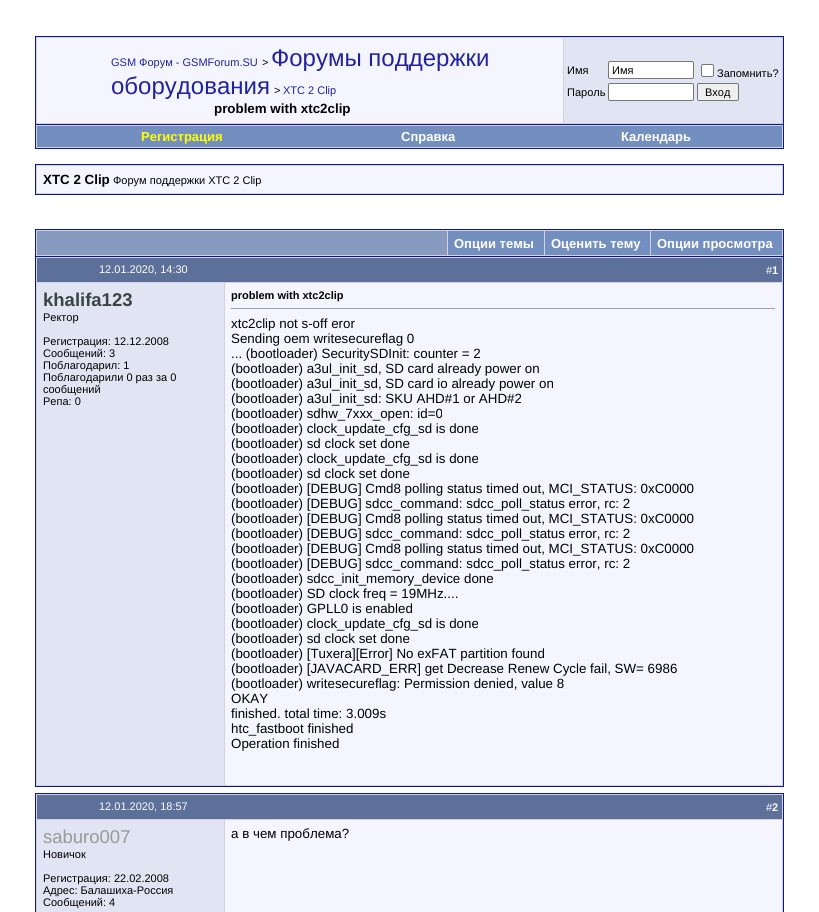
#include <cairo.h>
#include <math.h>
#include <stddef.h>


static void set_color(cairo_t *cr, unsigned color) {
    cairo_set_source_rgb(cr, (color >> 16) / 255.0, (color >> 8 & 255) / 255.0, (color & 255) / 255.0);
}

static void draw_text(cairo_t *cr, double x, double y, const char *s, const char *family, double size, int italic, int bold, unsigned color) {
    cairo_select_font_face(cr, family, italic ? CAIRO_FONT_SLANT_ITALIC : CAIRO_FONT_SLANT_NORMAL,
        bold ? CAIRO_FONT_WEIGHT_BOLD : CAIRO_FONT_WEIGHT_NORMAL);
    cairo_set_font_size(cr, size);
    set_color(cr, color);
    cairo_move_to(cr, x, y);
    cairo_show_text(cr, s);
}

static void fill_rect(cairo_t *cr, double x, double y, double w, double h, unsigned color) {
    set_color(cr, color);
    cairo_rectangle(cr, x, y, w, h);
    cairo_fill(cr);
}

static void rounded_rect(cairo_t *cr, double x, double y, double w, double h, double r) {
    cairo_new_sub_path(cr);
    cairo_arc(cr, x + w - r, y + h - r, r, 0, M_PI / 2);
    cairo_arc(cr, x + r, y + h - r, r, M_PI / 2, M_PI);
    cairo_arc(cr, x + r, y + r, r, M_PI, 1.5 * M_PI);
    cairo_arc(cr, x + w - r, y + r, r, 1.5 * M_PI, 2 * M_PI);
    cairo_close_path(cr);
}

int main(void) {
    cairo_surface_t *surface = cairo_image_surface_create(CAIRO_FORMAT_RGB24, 819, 912);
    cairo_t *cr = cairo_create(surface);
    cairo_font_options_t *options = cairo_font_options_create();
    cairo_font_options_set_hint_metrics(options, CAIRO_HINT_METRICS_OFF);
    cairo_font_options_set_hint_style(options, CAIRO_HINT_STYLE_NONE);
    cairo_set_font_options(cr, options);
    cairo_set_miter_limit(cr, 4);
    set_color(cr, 0xFFFFFF);
    cairo_paint(cr);
    set_color(cr, 0xD1D1E1);
    cairo_rectangle(cr, 35.5, 36.5, 748, 88);
    cairo_fill_preserve(cr);
    set_color(cr, 0x0B198C);
    cairo_set_line_width(cr, 1);
    cairo_stroke(cr);
    fill_rect(cr, 37, 38, 526, 85, 0xF5F5FF);
    draw_text(cr, 111, 66, "GSM Форум - GSMForum.SU", "Liberation Sans", 11, 0, 0, 0x22229C);
    draw_text(cr, 262, 66, ">", "Liberation Sans", 11, 0, 0, 0x000000);
    draw_text(cr, 271, 66, "Форумы поддержки", "Liberation Sans", 24, 0, 0, 0x22229C);
    draw_text(cr, 111, 94, "оборудования", "Liberation Sans", 24, 0, 0, 0x22229C);
    draw_text(cr, 274, 94, ">", "Liberation Sans", 11, 0, 0, 0x000000);
    draw_text(cr, 283, 94, "XTC 2 Clip", "Liberation Sans", 11, 0, 0, 0x22229C);
    draw_text(cr, 214, 113, "problem with xtc2clip", "Liberation Sans", 13.35, 0, 1, 0x000000);
    fill_rect(cr, 564, 38, 218, 85, 0xE1E4F2);
    draw_text(cr, 567, 74, "Имя", "Liberation Sans", 11, 0, 0, 0x000000);
    set_color(cr, 0xFFFFFF);
    rounded_rect(cr, 608.5, 61.5, 85, 17, 1.5);
    cairo_fill_preserve(cr);
    set_color(cr, 0x767676);
    cairo_stroke(cr);
    draw_text(cr, 612, 74, "Имя", "Liberation Sans", 11, 0, 0, 0x000000);
    set_color(cr, 0xFFFFFF);
    rounded_rect(cr, 701.5, 64.5, 12, 12, 1.5);
    cairo_fill_preserve(cr);
    set_color(cr, 0x767676);
    cairo_stroke(cr);
    draw_text(cr, 717, 77, "Запомнить?", "Liberation Sans", 11, 0, 0, 0x000000);
    draw_text(cr, 567, 96, "Пароль", "Liberation Sans", 11, 0, 0, 0x000000);
    set_color(cr, 0xFFFFFF);
    rounded_rect(cr, 608.5, 83.5, 85, 17, 1.5);
    cairo_fill_preserve(cr);
    set_color(cr, 0x767676);
    cairo_stroke(cr);
    set_color(cr, 0xEFEFEF);
    rounded_rect(cr, 697.5, 83.5, 41, 17, 1.5);
    cairo_fill_preserve(cr);
    set_color(cr, 0x767676);
    cairo_stroke(cr);
    draw_text(cr, 705, 96, "Вход", "Liberation Sans", 11, 0, 0, 0x000000);
    fill_rect(cr, 36, 125, 747, 23, 0xD1D1E1);
    fill_rect(cr, 783, 125, 1, 24, 0x0B198C);
    fill_rect(cr, 35, 148, 749, 1, 0x0B198C);
    fill_rect(cr, 35, 125, 1, 24, 0x0B198C);
    fill_rect(cr, 37, 126, 745, 21, 0x738FBF);
    draw_text(cr, 141, 141, "Регистрация", "Liberation Sans", 13, 0, 1, 0xFFFF00);
    draw_text(cr, 401, 141, "Справка", "Liberation Sans", 13, 0, 1, 0xFFFFFF);
    draw_text(cr, 621, 141, "Календарь", "Liberation Sans", 13, 0, 1, 0xFFFFFF);
    set_color(cr, 0xD1D1E1);
    cairo_rectangle(cr, 35.5, 164.5, 748, 30);
    cairo_fill_preserve(cr);
    set_color(cr, 0x0B198C);
    cairo_stroke(cr);
    fill_rect(cr, 37, 166, 745, 27, 0xF5F5FF);
    draw_text(cr, 43, 184, "XTC 2 Clip", "Liberation Sans", 13.35, 0, 1, 0x000000);
    draw_text(cr, 113, 184, "Форум поддержки XTC 2 Clip", "Liberation Sans", 11, 0, 0, 0x000000);
    fill_rect(cr, 36, 230, 747, 26, 0xD1D1E1);
    fill_rect(cr, 35, 229, 749, 1, 0x0B198C);
    fill_rect(cr, 783, 229, 1, 27, 0x0B198C);
    fill_rect(cr, 35, 229, 1, 27, 0x0B198C);
    fill_rect(cr, 37, 231, 410, 24, 0x869BBF);
    fill_rect(cr, 448, 231, 96, 24, 0x738FBF);
    draw_text(cr, 454, 248, "Опции темы", "Liberation Sans", 13, 0, 1, 0xFFFFFF);
    fill_rect(cr, 545, 231, 105, 24, 0x738FBF);
    draw_text(cr, 551, 248, "Оценить тему", "Liberation Sans", 13, 0, 1, 0xFFFFFF);
    fill_rect(cr, 651, 231, 131, 24, 0x738FBF);
    draw_text(cr, 657, 248, "Опции просмотра", "Liberation Sans", 13, 0, 1, 0xFFFFFF);
    cairo_rectangle(cr, 35.5, 256.5, 748, 530);
    set_color(cr, 0x0B198C);
    cairo_stroke(cr);
    fill_rect(cr, 37, 258, 745, 24, 0x5C7099);
    fill_rect(cr, 36, 257, 747, 1, 0xD1D1E1);
    fill_rect(cr, 36, 282, 189, 1, 0xD1D1E1);
    fill_rect(cr, 36, 257, 1, 500, 0xD1D1E1);
    draw_text(cr, 99, 273, "12.01.2020, 14:30", "Liberation Sans", 11, 0, 0, 0xFFFFFF);
    fill_rect(cr, 782, 257, 1, 529, 0xD1D1E1);
    fill_rect(cr, 225, 282, 558, 1, 0xD1D1E1);
    draw_text(cr, 766, 274, "#", "Liberation Sans", 11, 0, 0, 0xFFFFFF);
    draw_text(cr, 772, 274, "1", "Liberation Sans", 11, 0, 1, 0xFFFFFF);
    fill_rect(cr, 37, 283, 187, 502, 0xE1E4F2);
    fill_rect(cr, 224, 283, 1, 503, 0xD1D1E1);
    draw_text(cr, 43, 306, "khalifa123", "Liberation Sans", 18.5, 0, 1, 0x394445);
    draw_text(cr, 43, 321, "Ректор", "Liberation Sans", 11, 0, 0, 0x000000);
    draw_text(cr, 43, 345, "Регистрация: 12.12.2008", "Liberation Sans", 11, 0, 0, 0x000000);
    draw_text(cr, 43, 357, "Сообщений: 3", "Liberation Sans", 11, 0, 0, 0x000000);
    draw_text(cr, 43, 369, "Поблагодарил: 1", "Liberation Sans", 11, 0, 0, 0x000000);
    draw_text(cr, 43, 381, "Поблагодарили 0 раз за 0", "Liberation Sans", 11, 0, 0, 0x000000);
    draw_text(cr, 43, 393, "сообщений", "Liberation Sans", 11, 0, 0, 0x000000);
    draw_text(cr, 43, 405, "Репа: 0", "Liberation Sans", 11, 0, 0, 0x000000);
    fill_rect(cr, 225, 283, 557, 502, 0xF5F5FF);
    draw_text(cr, 231, 299, "problem with xtc2clip", "Liberation Sans", 11, 0, 1, 0x000000);
    fill_rect(cr, 231, 308, 545, 1, 0x9F9F9F);
    fill_rect(cr, 775, 308, 1, 1, 0xEEEEEE);
    draw_text(cr, 231, 328, "xtc2clip not s-off eror", "Liberation Sans", 13.35, 0, 0, 0x000000);
    draw_text(cr, 231, 343, "Sending oem writesecureflag 0", "Liberation Sans", 13.35, 0, 0, 0x000000);
    draw_text(cr, 231, 358, "... (bootloader) SecuritySDInit: counter = 2", "Liberation Sans", 13.35, 0, 0, 0x000000);
    draw_text(cr, 231, 373, "(bootloader) a3ul_init_sd, SD card already power on", "Liberation Sans", 13.35, 0, 0, 0x000000);
    draw_text(cr, 231, 388, "(bootloader) a3ul_init_sd, SD card io already power on", "Liberation Sans", 13.35, 0, 0, 0x000000);
    draw_text(cr, 231, 403, "(bootloader) a3ul_init_sd: SKU AHD#1 or AHD#2", "Liberation Sans", 13.35, 0, 0, 0x000000);
    draw_text(cr, 231, 418, "(bootloader) sdhw_7xxx_open: id=0", "Liberation Sans", 13.35, 0, 0, 0x000000);
    draw_text(cr, 231, 433, "(bootloader) clock_update_cfg_sd is done", "Liberation Sans", 13.35, 0, 0, 0x000000);
    draw_text(cr, 231, 448, "(bootloader) sd clock set done", "Liberation Sans", 13.35, 0, 0, 0x000000);
    draw_text(cr, 231, 463, "(bootloader) clock_update_cfg_sd is done", "Liberation Sans", 13.35, 0, 0, 0x000000);
    draw_text(cr, 231, 478, "(bootloader) sd clock set done", "Liberation Sans", 13.35, 0, 0, 0x000000);
    draw_text(cr, 231, 493, "(bootloader) [DEBUG] Cmd8 polling status timed out, MCI_STATUS: 0xC0000", "Liberation Sans", 13.35, 0, 0, 0x000000);
    draw_text(cr, 231, 508, "(bootloader) [DEBUG] sdcc_command: sdcc_poll_status error, rc: 2", "Liberation Sans", 13.35, 0, 0, 0x000000);
    draw_text(cr, 231, 523, "(bootloader) [DEBUG] Cmd8 polling status timed out, MCI_STATUS: 0xC0000", "Liberation Sans", 13.35, 0, 0, 0x000000);
    draw_text(cr, 231, 538, "(bootloader) [DEBUG] sdcc_command: sdcc_poll_status error, rc: 2", "Liberation Sans", 13.35, 0, 0, 0x000000);
    draw_text(cr, 231, 553, "(bootloader) [DEBUG] Cmd8 polling status timed out, MCI_STATUS: 0xC0000", "Liberation Sans", 13.35, 0, 0, 0x000000);
    draw_text(cr, 231, 568, "(bootloader) [DEBUG] sdcc_command: sdcc_poll_status error, rc: 2", "Liberation Sans", 13.35, 0, 0, 0x000000);
    draw_text(cr, 231, 583, "(bootloader) sdcc_init_memory_device done", "Liberation Sans", 13.35, 0, 0, 0x000000);
    draw_text(cr, 231, 598, "(bootloader) SD clock freq = 19MHz....", "Liberation Sans", 13.35, 0, 0, 0x000000);
    draw_text(cr, 231, 613, "(bootloader) GPLL0 is enabled", "Liberation Sans", 13.35, 0, 0, 0x000000);
    draw_text(cr, 231, 628, "(bootloader) clock_update_cfg_sd is done", "Liberation Sans", 13.35, 0, 0, 0x000000);
    draw_text(cr, 231, 643, "(bootloader) sd clock set done", "Liberation Sans", 13.35, 0, 0, 0x000000);
    draw_text(cr, 231, 658, "(bootloader) [Tuxera][Error] No exFAT partition found", "Liberation Sans", 13.35, 0, 0, 0x000000);
    draw_text(cr, 231, 673, "(bootloader) [JAVACARD_ERR] get Decrease Renew Cycle fail, SW= 6986", "Liberation Sans", 13.35, 0, 0, 0x000000);
    draw_text(cr, 231, 688, "(bootloader) writesecureflag: Permission denied, value 8", "Liberation Sans", 13.35, 0, 0, 0x000000);
    draw_text(cr, 231, 703, "OKAY", "Liberation Sans", 13.35, 0, 0, 0x000000);
    draw_text(cr, 231, 718, "finished. total time: 3.009s", "Liberation Sans", 13.35, 0, 0, 0x000000);
    draw_text(cr, 231, 733, "htc_fastboot finished", "Liberation Sans", 13.35, 0, 0, 0x000000);
    draw_text(cr, 231, 748, "Operation finished", "Liberation Sans", 13.35, 0, 0, 0x000000);
    fill_rect(cr, 36, 785, 747, 1, 0xD1D1E1);
    fill_rect(cr, 36, 757, 1, 29, 0xD1D1E1);
    cairo_rectangle(cr, 35.5, 793.5, 748, 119);
    set_color(cr, 0x0B198C);
    cairo_stroke(cr);
    fill_rect(cr, 37, 795, 745, 24, 0x5C7099);
    fill_rect(cr, 36, 794, 747, 1, 0xD1D1E1);
    fill_rect(cr, 36, 819, 189, 1, 0xD1D1E1);
    fill_rect(cr, 36, 794, 1, 118, 0xD1D1E1);
    draw_text(cr, 99, 810, "12.01.2020, 18:57", "Liberation Sans", 11, 0, 0, 0xFFFFFF);
    fill_rect(cr, 782, 794, 1, 118, 0xD1D1E1);
    fill_rect(cr, 225, 819, 558, 1, 0xD1D1E1);
    draw_text(cr, 766, 811, "#", "Liberation Sans", 11, 0, 0, 0xFFFFFF);
    draw_text(cr, 772, 811, "2", "Liberation Sans", 11, 0, 1, 0xFFFFFF);
    fill_rect(cr, 37, 820, 187, 92, 0xE1E4F2);
    fill_rect(cr, 224, 820, 1, 92, 0xD1D1E1);
    draw_text(cr, 43, 843, "saburo007", "Liberation Sans", 18.5, 0, 0, 0x999999);
    draw_text(cr, 43, 858, "Новичок", "Liberation Sans", 11, 0, 0, 0x000000);
    draw_text(cr, 43, 882, "Регистрация: 22.02.2008", "Liberation Sans", 11, 0, 0, 0x000000);
    draw_text(cr, 43, 894, "Адрес: Балашиха-Россия", "Liberation Sans", 11, 0, 0, 0x000000);
    draw_text(cr, 43, 906, "Сообщений: 4", "Liberation Sans", 11, 0, 0, 0x000000);
    fill_rect(cr, 225, 820, 557, 92, 0xF5F5FF);
    draw_text(cr, 231, 838, "а в чем проблема?", "Liberation Sans", 13.35, 0, 0, 0x000000);
    cairo_surface_write_to_png(surface, "output.png");
    cairo_font_options_destroy(options);
    cairo_destroy(cr);
    cairo_surface_destroy(surface);
    return 0;
}
